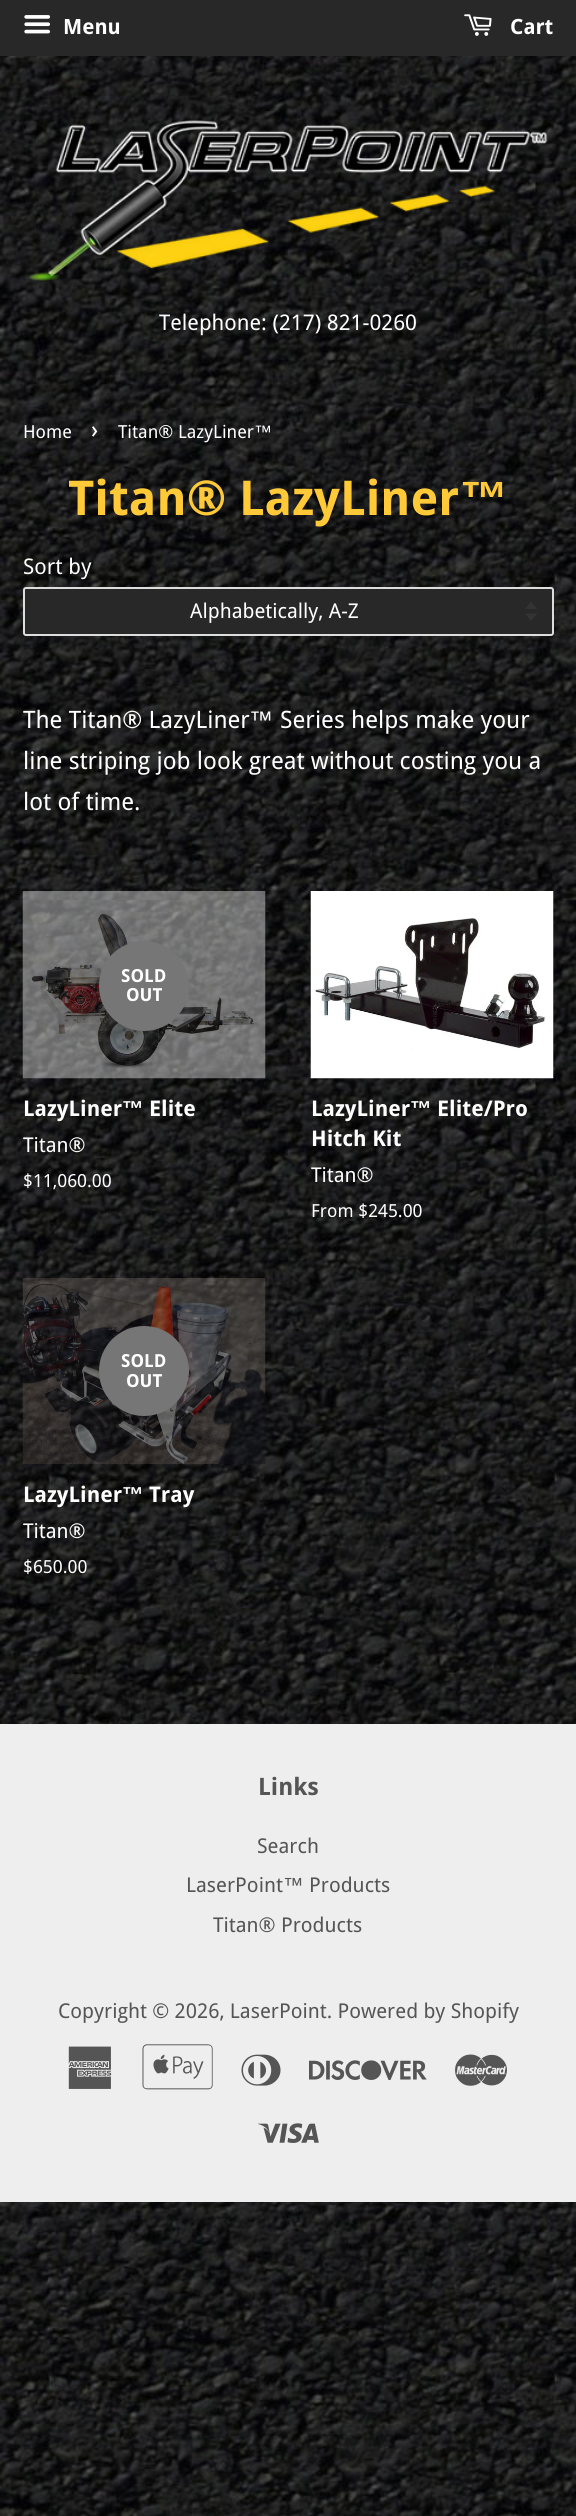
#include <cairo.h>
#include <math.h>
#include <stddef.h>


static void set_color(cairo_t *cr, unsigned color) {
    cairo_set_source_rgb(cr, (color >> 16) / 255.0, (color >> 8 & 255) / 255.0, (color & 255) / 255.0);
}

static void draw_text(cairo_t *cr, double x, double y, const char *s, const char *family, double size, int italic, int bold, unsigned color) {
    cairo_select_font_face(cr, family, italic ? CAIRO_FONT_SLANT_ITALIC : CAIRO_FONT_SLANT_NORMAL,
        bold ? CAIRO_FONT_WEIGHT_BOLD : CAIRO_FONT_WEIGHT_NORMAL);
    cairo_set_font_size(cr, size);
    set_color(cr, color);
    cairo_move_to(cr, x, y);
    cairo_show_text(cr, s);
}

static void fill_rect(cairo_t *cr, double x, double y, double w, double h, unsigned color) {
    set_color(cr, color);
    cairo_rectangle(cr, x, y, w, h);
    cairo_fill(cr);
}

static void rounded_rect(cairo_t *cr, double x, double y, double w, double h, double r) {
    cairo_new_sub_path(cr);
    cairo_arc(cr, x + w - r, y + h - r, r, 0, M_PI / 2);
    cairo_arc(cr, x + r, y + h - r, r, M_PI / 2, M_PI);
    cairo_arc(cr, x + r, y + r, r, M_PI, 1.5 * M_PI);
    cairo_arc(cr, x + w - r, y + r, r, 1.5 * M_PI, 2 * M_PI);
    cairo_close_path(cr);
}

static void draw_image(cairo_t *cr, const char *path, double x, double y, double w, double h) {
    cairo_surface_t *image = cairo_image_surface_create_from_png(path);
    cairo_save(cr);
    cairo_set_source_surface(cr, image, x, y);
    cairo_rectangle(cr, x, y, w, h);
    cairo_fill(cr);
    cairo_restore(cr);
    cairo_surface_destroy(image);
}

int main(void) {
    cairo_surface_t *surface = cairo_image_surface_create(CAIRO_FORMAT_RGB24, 576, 2516);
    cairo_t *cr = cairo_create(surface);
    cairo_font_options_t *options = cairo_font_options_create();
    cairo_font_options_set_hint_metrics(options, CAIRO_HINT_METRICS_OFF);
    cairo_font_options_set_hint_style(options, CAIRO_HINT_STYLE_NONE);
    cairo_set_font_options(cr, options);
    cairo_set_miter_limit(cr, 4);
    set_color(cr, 0xFFFFFF);
    cairo_paint(cr);
    draw_image(cr, "assets/img1.png", 0, 2202, 576, 314);
    draw_image(cr, "assets/img2.png", 0, 56, 576, 1668);
    fill_rect(cr, 0, 0, 576, 56, 0x282828);
    draw_image(cr, "assets/img3.png", 24, 15, 26, 19);
    draw_text(cr, 63, 34, "Menu", "Droid Sans", 21, 0, 1, 0xFFFFFF);
    draw_image(cr, "assets/img4.png", 464, 14, 28, 22);
    draw_text(cr, 510, 34, "Cart", "Droid Sans", 21, 0, 1, 0xFFFFFF);
    draw_image(cr, "assets/img5.png", 28, 120, 520, 161);
    draw_text(cr, 159, 330, "Telephone: (217) 821-0260", "Droid Sans", 21.6, 0, 0, 0xFFFFFF);
    draw_text(cr, 23, 438, "Home", "Droid Sans", 18, 0, 0, 0xFFFFFF);
    draw_text(cr, 91, 438, "›", "Droid Sans", 25, 0, 0, 0xFFFFFF);
    draw_text(cr, 118, 438, "Titan® LazyLiner", "Droid Sans", 18, 0, 0, 0xFFFFFF);
    draw_text(cr, 254, 438, "™", "Liberation Sans", 18, 0, 0, 0xFFFFFF);
    draw_text(cr, 68, 515, "Titan® LazyLiner", "Droid Sans", 48, 0, 1, 0xFFC938);
    draw_text(cr, 460, 515, "™", "Liberation Sans", 48, 0, 1, 0xFFC938);
    draw_text(cr, 23, 574, "Sort by", "Droid Sans", 21.6, 0, 0, 0xFFFFFF);
    set_color(cr, 0x282828);
    rounded_rect(cr, 23, 587, 531, 49, 3);
    cairo_fill(cr);
    draw_image(cr, "assets/img6.png", 525, 602, 12, 19);
    rounded_rect(cr, 24, 588, 529, 47, 2);
    set_color(cr, 0xDDDDDD);
    cairo_stroke(cr);
    draw_text(cr, 190, 618, "Alphabetically, A-Z", "Droid Sans", 20.4, 0, 0, 0xFFFFFF);
    draw_text(cr, 23, 728, "The Titan® LazyLiner", "Droid Sans", 24, 0, 0, 0xFFFFFF);
    draw_text(cr, 249, 728, "™", "Liberation Sans", 24, 0, 0, 0xFFFFFF);
    draw_text(cr, 280, 728, "Series helps make your", "Droid Sans", 24, 0, 0, 0xFFFFFF);
    draw_text(cr, 23, 769, "line striping job look great without costing you a", "Droid Sans", 24, 0, 0, 0xFFFFFF);
    draw_text(cr, 23, 810, "lot of time.", "Droid Sans", 24, 0, 0, 0xFFFFFF);
    draw_image(cr, "assets/img7.png", 22, 891, 244, 188);
    set_color(cr, 0x767676);
    cairo_arc(cr, 144, 986, 45, 0, 2 * M_PI);
    cairo_fill(cr);
    draw_text(cr, 121, 982, "SOLD", "Droid Sans", 18, 0, 1, 0xFFFFFF);
    draw_text(cr, 126, 1001, "OUT", "Droid Sans", 18, 0, 1, 0xFFFFFF);
    draw_text(cr, 23, 1116, "LazyLiner", "Droid Sans", 21.6, 0, 1, 0xFFFFFF);
    draw_text(cr, 122, 1116, "™", "Liberation Sans", 21.6, 0, 1, 0xFFFFFF);
    draw_text(cr, 149, 1116, "Elite", "Droid Sans", 21.6, 0, 1, 0xFFFFFF);
    draw_text(cr, 23, 1152, "Titan®", "Droid Sans", 20.4, 0, 0, 0xFFFFFF);
    draw_text(cr, 23, 1187, "$11,060.00", "Droid Sans", 18, 0, 0, 0xFFFFFF);
    draw_image(cr, "assets/img8.png", 310, 891, 244, 188);
    draw_text(cr, 311, 1116, "LazyLiner", "Droid Sans", 21.6, 0, 1, 0xFFFFFF);
    draw_text(cr, 410, 1116, "™", "Liberation Sans", 21.6, 0, 1, 0xFFFFFF);
    draw_text(cr, 437, 1116, "Elite/Pro", "Droid Sans", 21.6, 0, 1, 0xFFFFFF);
    draw_text(cr, 311, 1146, "Hitch Kit", "Droid Sans", 21.6, 0, 1, 0xFFFFFF);
    draw_text(cr, 311, 1182, "Titan®", "Droid Sans", 20.4, 0, 0, 0xFFFFFF);
    draw_text(cr, 311, 1217, "From $245.00", "Droid Sans", 18, 0, 0, 0xFFFFFF);
    draw_image(cr, "assets/img9.png", 22, 1278, 244, 186);
    set_color(cr, 0x767676);
    cairo_arc(cr, 144, 1371, 45, 0, 2 * M_PI);
    cairo_fill(cr);
    draw_text(cr, 121, 1367, "SOLD", "Droid Sans", 18, 0, 1, 0xFFFFFF);
    draw_text(cr, 126, 1387, "OUT", "Droid Sans", 18, 0, 1, 0xFFFFFF);
    draw_text(cr, 23, 1502, "LazyLiner", "Droid Sans", 21.6, 0, 1, 0xFFFFFF);
    draw_text(cr, 122, 1502, "™", "Liberation Sans", 21.6, 0, 1, 0xFFFFFF);
    draw_text(cr, 149, 1502, "Tray", "Droid Sans", 21.6, 0, 1, 0xFFFFFF);
    draw_text(cr, 23, 1538, "Titan®", "Droid Sans", 20.4, 0, 0, 0xFFFFFF);
    draw_text(cr, 23, 1573, "$650.00", "Droid Sans", 18, 0, 0, 0xFFFFFF);
    fill_rect(cr, 0, 1724, 576, 478, 0xEEEEEE);
    draw_text(cr, 258, 1795, "Links", "Droid Sans", 24, 0, 1, 0x555555);
    draw_text(cr, 257, 1853, "Search", "Droid Sans", 20.4, 0, 0, 0x555555);
    draw_text(cr, 186, 1892, "LaserPoint", "Droid Sans", 20.4, 0, 0, 0x555555);
    draw_text(cr, 283, 1892, "™", "Liberation Sans", 20.4, 0, 0, 0x555555);
    draw_text(cr, 309, 1892, "Products", "Droid Sans", 20.4, 0, 0, 0x555555);
    draw_text(cr, 213, 1932, "Titan® Products", "Droid Sans", 20.4, 0, 0, 0x555555);
    draw_text(cr, 58, 2018, "Copyright © 2026, LaserPoint. Powered by Shopify", "Droid Sans", 20.4, 0, 0, 0x555555);
    draw_image(cr, "assets/img10.png", 68, 2046, 44, 43);
    draw_image(cr, "assets/img11.png", 142, 2044, 71, 46);
    draw_image(cr, "assets/img12.png", 241, 2054, 40, 32);
    draw_image(cr, "assets/img13.png", 309, 2060, 118, 20);
    draw_image(cr, "assets/img14.png", 455, 2054, 52, 32);
    draw_image(cr, "assets/img15.png", 258, 2123, 61, 20);
    cairo_surface_write_to_png(surface, "output.png");
    cairo_font_options_destroy(options);
    cairo_destroy(cr);
    cairo_surface_destroy(surface);
    return 0;
}
